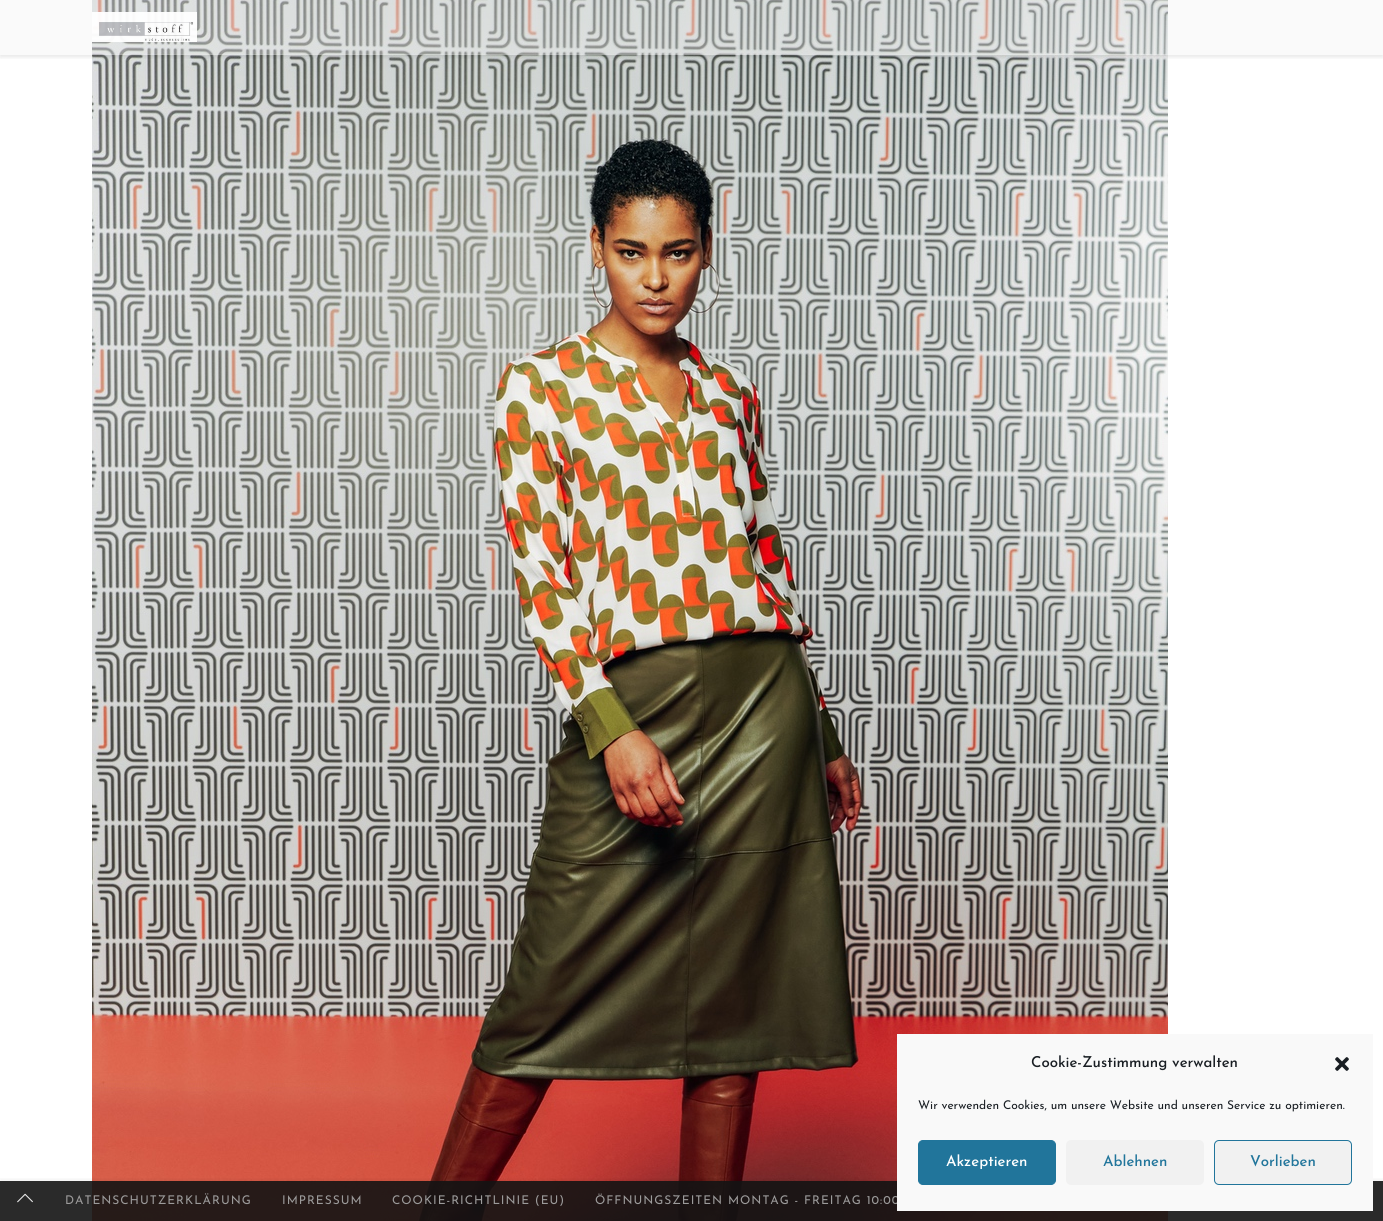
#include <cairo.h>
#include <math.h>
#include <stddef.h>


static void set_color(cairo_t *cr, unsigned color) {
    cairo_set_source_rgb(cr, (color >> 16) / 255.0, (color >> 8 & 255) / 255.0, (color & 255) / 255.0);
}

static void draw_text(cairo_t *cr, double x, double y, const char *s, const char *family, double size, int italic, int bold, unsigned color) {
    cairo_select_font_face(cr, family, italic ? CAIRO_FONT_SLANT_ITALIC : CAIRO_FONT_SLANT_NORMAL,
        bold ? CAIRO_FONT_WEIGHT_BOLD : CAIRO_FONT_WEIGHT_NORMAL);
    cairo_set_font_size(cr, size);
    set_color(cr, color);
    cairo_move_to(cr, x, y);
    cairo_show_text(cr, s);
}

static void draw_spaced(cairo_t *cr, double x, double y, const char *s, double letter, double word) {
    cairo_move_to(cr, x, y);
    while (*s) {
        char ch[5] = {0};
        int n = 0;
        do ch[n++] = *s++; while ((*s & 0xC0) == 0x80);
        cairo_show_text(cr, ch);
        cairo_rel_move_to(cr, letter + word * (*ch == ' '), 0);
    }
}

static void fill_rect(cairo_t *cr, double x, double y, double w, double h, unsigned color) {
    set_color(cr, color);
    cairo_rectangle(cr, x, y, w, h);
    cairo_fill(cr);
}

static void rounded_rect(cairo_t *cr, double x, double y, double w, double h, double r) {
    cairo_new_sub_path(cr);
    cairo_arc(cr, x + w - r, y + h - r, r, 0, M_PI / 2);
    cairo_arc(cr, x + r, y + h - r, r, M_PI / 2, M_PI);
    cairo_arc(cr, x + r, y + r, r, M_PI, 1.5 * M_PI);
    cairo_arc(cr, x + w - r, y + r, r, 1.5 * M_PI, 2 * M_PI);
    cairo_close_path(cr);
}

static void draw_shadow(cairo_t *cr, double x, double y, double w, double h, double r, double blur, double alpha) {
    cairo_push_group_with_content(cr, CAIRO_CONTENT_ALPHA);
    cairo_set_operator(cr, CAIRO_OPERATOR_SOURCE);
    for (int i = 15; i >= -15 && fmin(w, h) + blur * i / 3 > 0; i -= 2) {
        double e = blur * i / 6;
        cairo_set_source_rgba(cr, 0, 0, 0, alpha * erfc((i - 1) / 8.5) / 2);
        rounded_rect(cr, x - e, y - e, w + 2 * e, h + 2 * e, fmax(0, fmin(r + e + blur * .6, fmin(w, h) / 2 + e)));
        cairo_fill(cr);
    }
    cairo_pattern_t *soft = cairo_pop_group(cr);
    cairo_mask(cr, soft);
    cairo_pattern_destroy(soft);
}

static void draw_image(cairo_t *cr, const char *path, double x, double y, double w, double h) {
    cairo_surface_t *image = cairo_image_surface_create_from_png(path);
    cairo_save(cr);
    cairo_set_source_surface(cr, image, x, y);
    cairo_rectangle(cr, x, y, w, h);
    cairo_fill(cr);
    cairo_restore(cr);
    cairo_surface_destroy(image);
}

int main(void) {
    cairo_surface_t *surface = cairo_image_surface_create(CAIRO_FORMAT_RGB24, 1383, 1221);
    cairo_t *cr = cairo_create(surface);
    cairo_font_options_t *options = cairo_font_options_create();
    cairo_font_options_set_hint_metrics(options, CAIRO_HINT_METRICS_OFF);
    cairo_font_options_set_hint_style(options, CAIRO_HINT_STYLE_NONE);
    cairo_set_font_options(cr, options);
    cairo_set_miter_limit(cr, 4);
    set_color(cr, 0xFFFFFF);
    cairo_paint(cr);
    draw_image(cr, "assets/img3.png", 92, 0, 1076, 1221);
    cairo_save(cr);
    cairo_rectangle(cr, 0, 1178, 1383, 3);
    cairo_clip(cr);
    set_color(cr, 0x000000);
    draw_shadow(cr, 0, 1181, 1383, 40, 0, 4, 0.09);
    cairo_restore(cr);
    cairo_set_source_rgba(cr, 0.075, 0.075, 0.075, 0.9);
    cairo_rectangle(cr, 0, 1181, 1383, 40);
    cairo_fill(cr);
    cairo_select_font_face(cr, "Josefin Sans", CAIRO_FONT_SLANT_NORMAL, CAIRO_FONT_WEIGHT_NORMAL);
    cairo_set_font_size(cr, 12);
    set_color(cr, 0x9C9B9B);
    draw_spaced(cr, 595, 1204, "ÖFFNUNGSZEITEN MONTAG - FREITAG 10:00", 1, 0);
    fill_rect(cr, 897, 1034, 476, 177, 0xF9F9F9);
    draw_text(cr, 1031, 1067, "Cookie-Zustimmung verwalten", "Josefin Sans Medium", 15, 0, 0, 0x191E23);
    draw_image(cr, "assets/img1.png", 1335, 1057, 14, 14);
    draw_text(cr, 918, 1109, "Wir verwenden Cookies, um unsere Website und unseren Service zu optimieren.", "Josefin Sans", 12, 0, 0, 0x191E23);
    set_color(cr, 0x21759B);
    rounded_rect(cr, 918.5, 1140.5, 137, 44, 4.5);
    cairo_fill_preserve(cr);
    cairo_set_line_width(cr, 1);
    cairo_stroke(cr);
    draw_text(cr, 946, 1166, "Akzeptieren", "Josefin Sans Medium", 15, 0, 0, 0xFFFFFF);
    set_color(cr, 0xF1F1F1);
    rounded_rect(cr, 1066, 1140, 138, 45, 5);
    cairo_fill(cr);
    draw_text(cr, 1103, 1166, "Ablehnen", "Josefin Sans Medium", 15, 0, 0, 0x21759B);
    set_color(cr, 0xF1F1F1);
    rounded_rect(cr, 1214.5, 1140.5, 137, 44, 4.5);
    cairo_fill_preserve(cr);
    set_color(cr, 0x21759B);
    cairo_stroke(cr);
    draw_text(cr, 1250, 1166, "Vorlieben", "Josefin Sans Medium", 15, 0, 0, 0x21759B);
    cairo_save(cr);
    cairo_rectangle(cr, 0, 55, 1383, 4);
    cairo_clip(cr);
    set_color(cr, 0x000000);
    draw_shadow(cr, 0, 2, 1383, 55, 0, 2.5, 0.1);
    cairo_restore(cr);
    cairo_set_source_rgba(cr, 0.949, 0.949, 0.949, 0.37);
    cairo_rectangle(cr, 0, 0, 1383, 55);
    cairo_fill(cr);
    cairo_set_source_rgba(cr, 1, 1, 1, 0.1);
    cairo_rectangle(cr, 92, 54, 1075, 1);
    cairo_fill(cr);
    draw_image(cr, "assets/img2.png", 92, 12, 105, 30);
    draw_image(cr, "assets/img4.png", 17, 1193, 16, 10);
    cairo_select_font_face(cr, "Josefin Sans", CAIRO_FONT_SLANT_NORMAL, CAIRO_FONT_WEIGHT_NORMAL);
    cairo_set_font_size(cr, 12);
    set_color(cr, 0x9C9B9B);
    draw_spaced(cr, 65, 1204, "DATENSCHUTZERKLÄRUNG", 1, 0);
    draw_spaced(cr, 282, 1204, "IMPRESSUM", 1, 0);
    draw_spaced(cr, 392, 1204, "COOKIE-RICHTLINIE (EU)", 1, 0);
    cairo_surface_write_to_png(surface, "output.png");
    cairo_font_options_destroy(options);
    cairo_destroy(cr);
    cairo_surface_destroy(surface);
    return 0;
}
